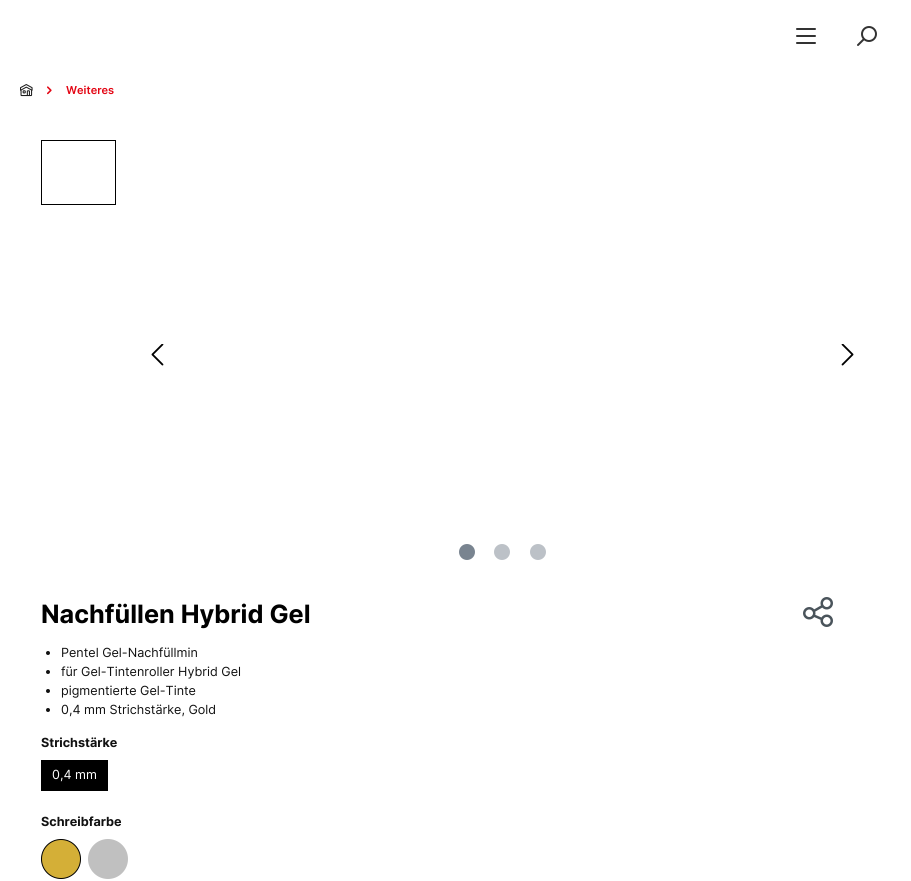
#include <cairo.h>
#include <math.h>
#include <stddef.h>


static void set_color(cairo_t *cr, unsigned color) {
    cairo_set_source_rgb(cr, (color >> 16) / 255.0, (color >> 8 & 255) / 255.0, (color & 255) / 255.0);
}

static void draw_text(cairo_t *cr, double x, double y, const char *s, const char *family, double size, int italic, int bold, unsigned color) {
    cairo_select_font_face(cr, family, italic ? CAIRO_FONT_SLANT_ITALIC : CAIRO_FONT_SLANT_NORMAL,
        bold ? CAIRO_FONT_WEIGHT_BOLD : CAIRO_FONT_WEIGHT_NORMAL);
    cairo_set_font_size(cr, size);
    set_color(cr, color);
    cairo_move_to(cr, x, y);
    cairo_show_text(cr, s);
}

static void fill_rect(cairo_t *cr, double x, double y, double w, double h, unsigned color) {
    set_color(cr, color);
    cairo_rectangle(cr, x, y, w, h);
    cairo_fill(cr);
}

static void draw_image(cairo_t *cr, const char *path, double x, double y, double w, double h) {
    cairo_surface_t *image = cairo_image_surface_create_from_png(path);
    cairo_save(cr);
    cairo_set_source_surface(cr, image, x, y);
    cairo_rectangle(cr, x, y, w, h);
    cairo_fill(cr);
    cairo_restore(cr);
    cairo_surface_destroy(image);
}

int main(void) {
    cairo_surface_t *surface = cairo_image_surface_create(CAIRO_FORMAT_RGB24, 911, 881);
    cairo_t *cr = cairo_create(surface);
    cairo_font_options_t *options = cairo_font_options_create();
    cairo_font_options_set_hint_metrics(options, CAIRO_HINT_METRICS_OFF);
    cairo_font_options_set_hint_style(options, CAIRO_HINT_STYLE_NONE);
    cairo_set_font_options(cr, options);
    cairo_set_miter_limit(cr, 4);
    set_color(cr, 0xFFFFFF);
    cairo_paint(cr);
    draw_image(cr, "assets/img1.png", 796, 28, 20, 16);
    draw_image(cr, "assets/img2.png", 857, 26, 20, 20);
    draw_image(cr, "assets/img3.png", 20, 84, 13, 13);
    draw_image(cr, "assets/img4.png", 47, 86, 5, 9);
    draw_text(cr, 66, 94, "Weiteres", "Inter SemiBold", 11, 0, 0, 0xE30513);
    cairo_rectangle(cr, 41.5, 140.5, 74, 64);
    set_color(cr, 0x000000);
    cairo_set_line_width(cr, 1);
    cairo_stroke(cr);
    draw_image(cr, "assets/img5.png", 151, 344, 13, 22);
    draw_image(cr, "assets/img6.png", 841, 344, 13, 22);
    set_color(cr, 0x798490);
    cairo_arc(cr, 467, 552, 8, 0, 2 * M_PI);
    cairo_fill(cr);
    set_color(cr, 0xBCC1C7);
    cairo_arc(cr, 502, 552, 8, 0, 2 * M_PI);
    cairo_fill(cr);
    cairo_arc(cr, 538, 552, 8, 0, 2 * M_PI);
    cairo_fill(cr);
    draw_text(cr, 41, 623, "Nachfüllen Hybrid Gel", "Inter", 25.25, 0, 1, 0x000000);
    draw_image(cr, "assets/img7.png", 803, 597, 30, 30);
    set_color(cr, 0x111111);
    cairo_arc(cr, 48, 653, 2, 0, 2 * M_PI);
    cairo_fill(cr);
    draw_text(cr, 61, 657, "Pentel Gel-Nachfüllmin", "Inter", 12.6, 0, 0, 0x111111);
    cairo_new_path(cr);
    cairo_arc(cr, 48, 672, 2, 0, 2 * M_PI);
    cairo_fill(cr);
    draw_text(cr, 61, 676, "für Gel-Tintenroller Hybrid Gel", "Inter", 12.6, 0, 0, 0x111111);
    cairo_new_path(cr);
    cairo_arc(cr, 48, 691, 2, 0, 2 * M_PI);
    cairo_fill(cr);
    draw_text(cr, 61, 695, "pigmentierte Gel-Tinte", "Inter", 12.6, 0, 0, 0x111111);
    cairo_new_path(cr);
    cairo_arc(cr, 48, 710, 2, 0, 2 * M_PI);
    cairo_fill(cr);
    draw_text(cr, 61, 714, "0,4 mm Strichstärke, Gold", "Inter", 12.6, 0, 0, 0x111111);
    draw_text(cr, 41, 747, "Strichstärke", "Inter", 12.6, 0, 1, 0x111111);
    fill_rect(cr, 41, 760, 67, 31, 0x000000);
    draw_text(cr, 52, 779, "0,4 mm", "Inter", 12.6, 0, 0, 0xFFFFFF);
    draw_text(cr, 41, 826, "Schreibfarbe", "Inter", 12.6, 0, 1, 0x111111);
    set_color(cr, 0xD4AF37);
    cairo_new_path(cr);
    cairo_arc(cr, 61, 859, 19.5, 0, 2 * M_PI);
    cairo_fill_preserve(cr);
    set_color(cr, 0x000000);
    cairo_stroke(cr);
    set_color(cr, 0xC0C0C0);
    cairo_arc(cr, 108, 859, 20, 0, 2 * M_PI);
    cairo_fill(cr);
    cairo_surface_write_to_png(surface, "output.png");
    cairo_font_options_destroy(options);
    cairo_destroy(cr);
    cairo_surface_destroy(surface);
    return 0;
}
